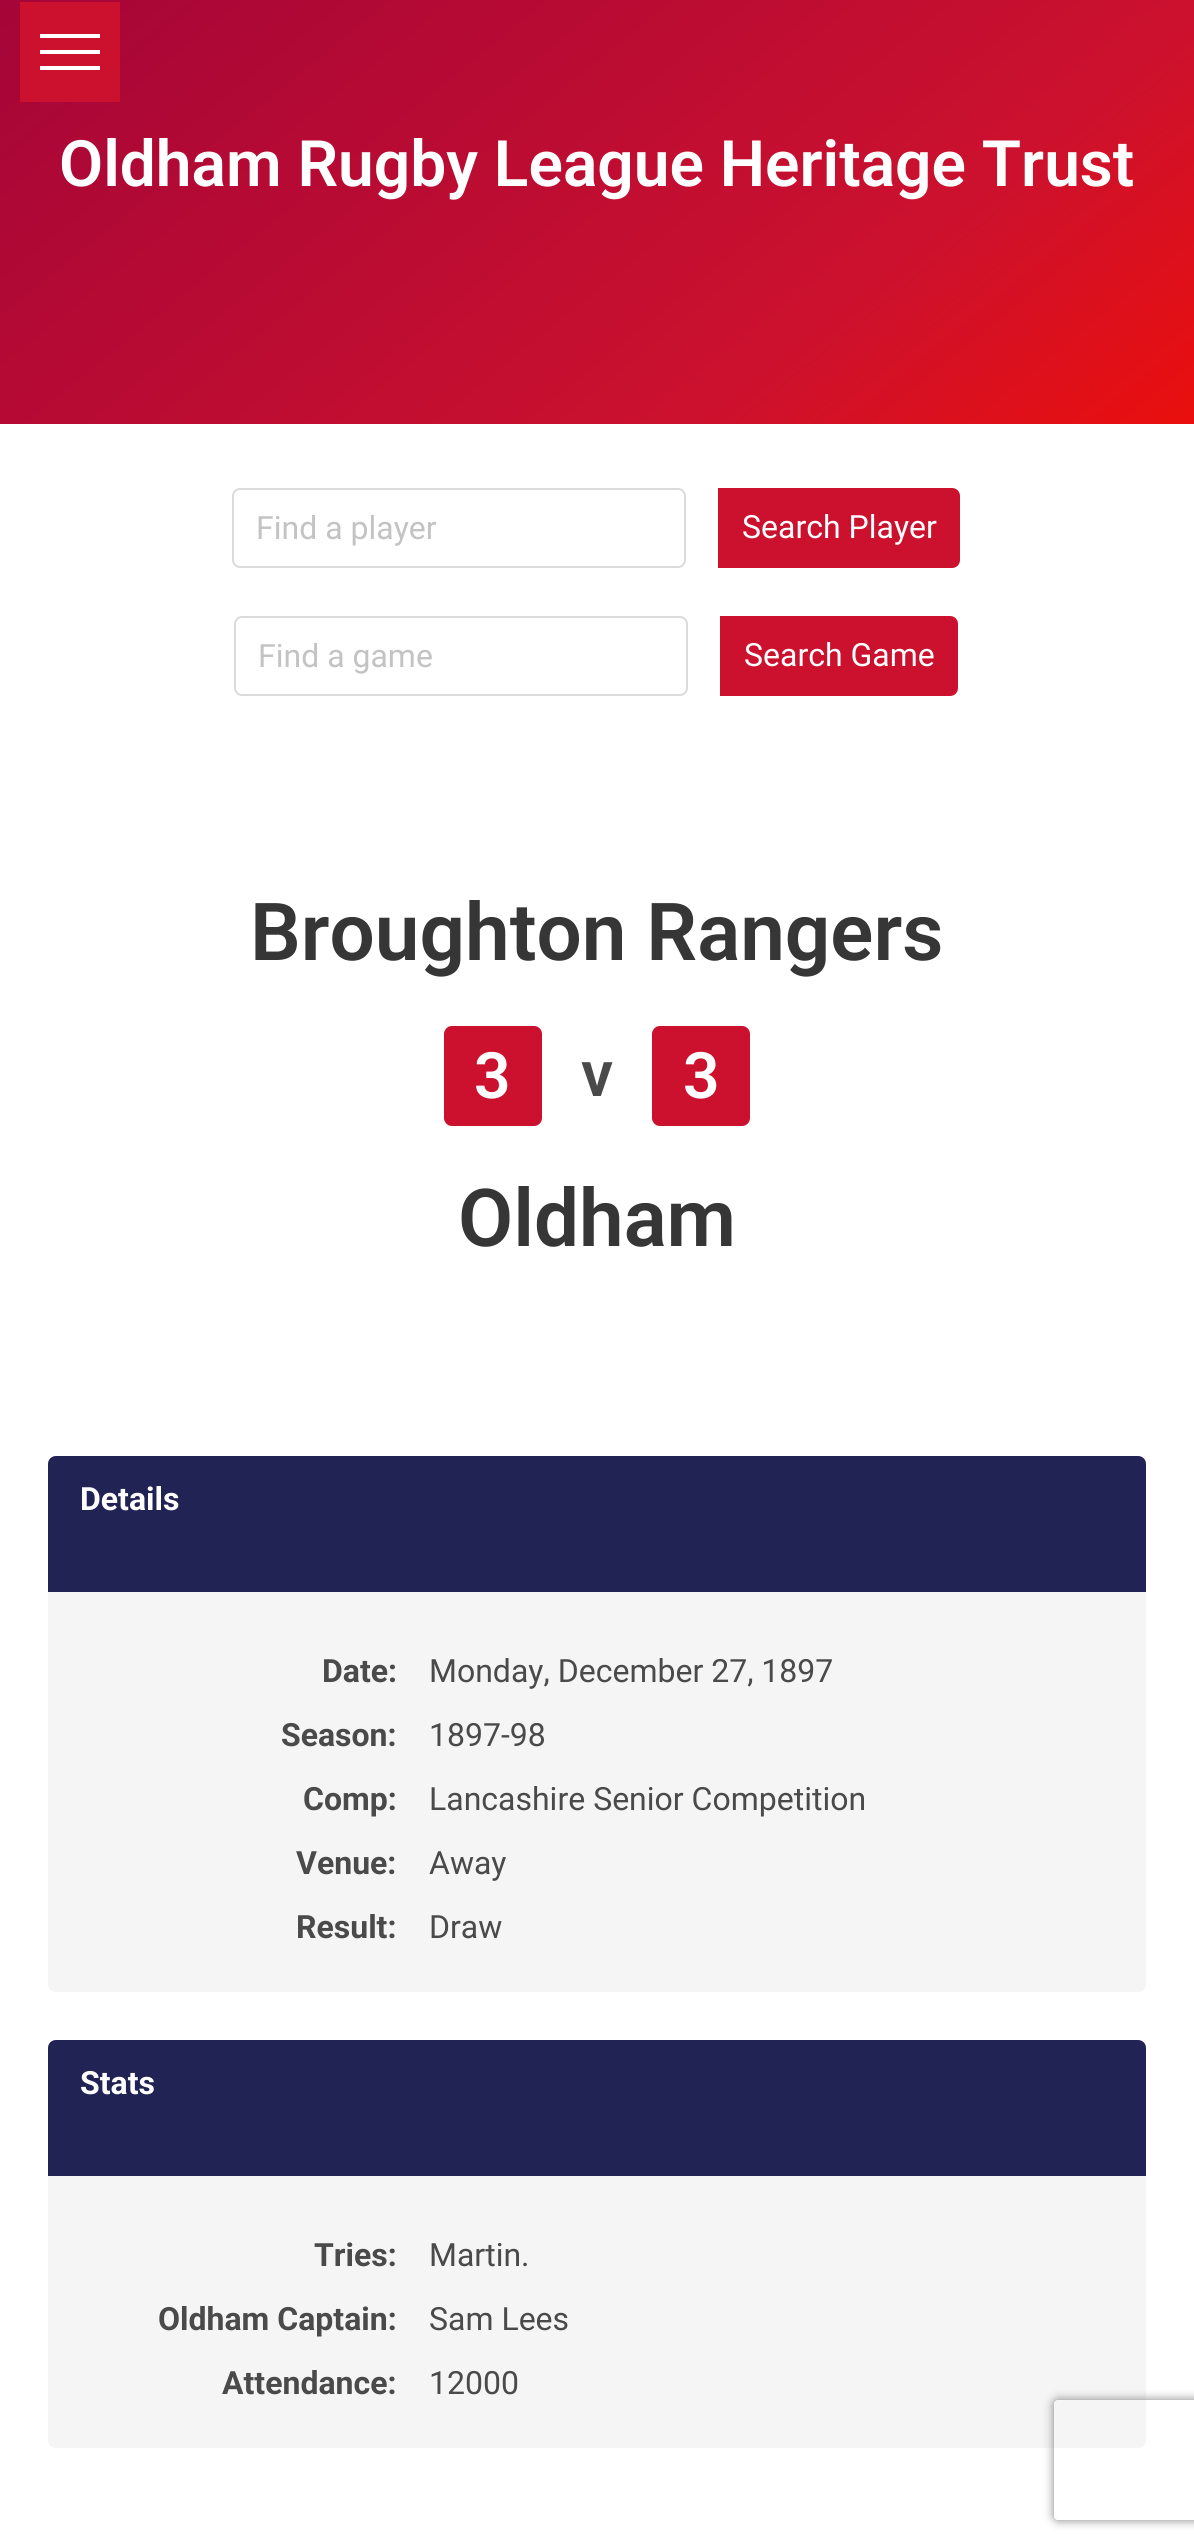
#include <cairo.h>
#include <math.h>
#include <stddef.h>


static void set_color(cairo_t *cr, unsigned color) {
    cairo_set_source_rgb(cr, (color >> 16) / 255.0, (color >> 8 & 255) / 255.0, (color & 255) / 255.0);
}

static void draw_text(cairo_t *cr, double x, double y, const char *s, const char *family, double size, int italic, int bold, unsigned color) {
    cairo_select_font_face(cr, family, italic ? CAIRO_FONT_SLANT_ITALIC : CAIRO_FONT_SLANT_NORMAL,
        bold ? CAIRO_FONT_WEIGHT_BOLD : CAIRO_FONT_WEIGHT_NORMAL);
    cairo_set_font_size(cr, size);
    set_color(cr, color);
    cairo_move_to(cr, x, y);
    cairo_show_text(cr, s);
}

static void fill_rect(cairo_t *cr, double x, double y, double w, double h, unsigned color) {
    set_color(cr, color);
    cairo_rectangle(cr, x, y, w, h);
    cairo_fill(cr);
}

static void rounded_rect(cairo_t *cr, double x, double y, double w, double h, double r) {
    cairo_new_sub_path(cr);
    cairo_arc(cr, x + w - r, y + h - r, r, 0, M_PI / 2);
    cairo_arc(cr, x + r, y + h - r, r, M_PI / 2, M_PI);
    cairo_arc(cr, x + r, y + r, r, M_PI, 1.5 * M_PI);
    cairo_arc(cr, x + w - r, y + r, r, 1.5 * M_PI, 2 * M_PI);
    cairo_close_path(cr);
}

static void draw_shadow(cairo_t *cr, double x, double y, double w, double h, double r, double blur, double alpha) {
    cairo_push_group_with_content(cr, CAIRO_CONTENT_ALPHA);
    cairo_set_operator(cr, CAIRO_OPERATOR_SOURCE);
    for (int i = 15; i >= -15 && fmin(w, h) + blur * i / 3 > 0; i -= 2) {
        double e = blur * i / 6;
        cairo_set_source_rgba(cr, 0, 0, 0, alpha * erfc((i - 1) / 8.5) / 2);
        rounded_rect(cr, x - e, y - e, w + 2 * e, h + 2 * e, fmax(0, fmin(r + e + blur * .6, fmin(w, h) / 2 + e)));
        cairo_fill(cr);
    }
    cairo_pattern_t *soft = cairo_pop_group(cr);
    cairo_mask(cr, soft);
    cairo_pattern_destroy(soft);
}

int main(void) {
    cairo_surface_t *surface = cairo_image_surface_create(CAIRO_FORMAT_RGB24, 1194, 2547);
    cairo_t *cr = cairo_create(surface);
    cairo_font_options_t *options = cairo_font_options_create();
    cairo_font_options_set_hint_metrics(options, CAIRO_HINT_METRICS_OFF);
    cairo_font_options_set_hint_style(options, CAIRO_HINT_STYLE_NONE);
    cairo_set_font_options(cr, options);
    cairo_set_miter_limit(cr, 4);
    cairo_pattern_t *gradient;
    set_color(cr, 0xFFFFFF);
    cairo_paint(cr);
    gradient = cairo_pattern_create_linear(257, -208, 937, 632);
    cairo_pattern_add_color_stop_rgba(gradient, 0, 0.647, 0.02, 0.22, 1);
    cairo_pattern_add_color_stop_rgba(gradient, 0.71, 0.8, 0.067, 0.18, 1);
    cairo_pattern_add_color_stop_rgba(gradient, 1, 0.918, 0.059, 0.051, 1);
    cairo_set_source(cr, gradient);
    cairo_pattern_destroy(gradient);
    cairo_rectangle(cr, 0, 0, 1194, 424);
    cairo_fill(cr);
    fill_rect(cr, 20, 2, 100, 100, 0xCC112E);
    fill_rect(cr, 40, 50, 60, 4, 0xFFFFFF);
    fill_rect(cr, 40, 34, 60, 4, 0xFFFFFF);
    fill_rect(cr, 40, 66, 60, 4, 0xFFFFFF);
    draw_text(cr, 59, 186, "Oldham Rugby League Heritage Trust", "Roboto SemiBold", 64, 0, 0, 0xFFFFFF);
    rounded_rect(cr, 233, 489, 452, 78, 7);
    set_color(cr, 0xDBDBDB);
    cairo_stroke(cr);
    draw_text(cr, 256, 539, "Find a player", "Roboto", 32, 0, 0, 0xC3C3C3);
    set_color(cr, 0xCC112E);
    cairo_new_path(cr);
    cairo_move_to(cr, 718, 488);
    cairo_line_to(cr, 952, 488);
    cairo_curve_to(cr, 956.5, 488, 960, 491.5, 960, 496);
    cairo_line_to(cr, 960, 560);
    cairo_curve_to(cr, 960, 564.5, 956.5, 568, 952, 568);
    cairo_line_to(cr, 718, 568);
    cairo_close_path(cr);
    cairo_fill(cr);
    draw_text(cr, 742, 538, "Search Player", "Roboto", 32, 0, 0, 0xFFFFFF);
    rounded_rect(cr, 235, 617, 452, 78, 7);
    set_color(cr, 0xDBDBDB);
    cairo_stroke(cr);
    draw_text(cr, 258, 667, "Find a game", "Roboto", 32, 0, 0, 0xC3C3C3);
    set_color(cr, 0xCC112E);
    cairo_new_path(cr);
    cairo_move_to(cr, 720, 616);
    cairo_line_to(cr, 950, 616);
    cairo_curve_to(cr, 954.5, 616, 958, 619.5, 958, 624);
    cairo_line_to(cr, 958, 688);
    cairo_curve_to(cr, 958, 692.5, 954.5, 696, 950, 696);
    cairo_line_to(cr, 720, 696);
    cairo_close_path(cr);
    cairo_fill(cr);
    draw_text(cr, 744, 666, "Search Game", "Roboto", 32, 0, 0, 0xFFFFFF);
    draw_text(cr, 250, 960, "Broughton Rangers", "Roboto SemiBold", 80, 0, 0, 0x363636);
    set_color(cr, 0xCC112E);
    rounded_rect(cr, 444, 1026, 98, 100, 8);
    cairo_fill(cr);
    draw_text(cr, 474, 1098, "3", "Roboto SemiBold", 64, 0, 0, 0xFFFFFF);
    draw_text(cr, 581, 1096, "v", "Roboto SemiBold", 64, 0, 0, 0x4A4A4A);
    set_color(cr, 0xCC112E);
    rounded_rect(cr, 652, 1026, 98, 100, 8);
    cairo_fill(cr);
    draw_text(cr, 683, 1098, "3", "Roboto SemiBold", 64, 0, 0, 0xFFFFFF);
    draw_text(cr, 458, 1246, "Oldham", "Roboto SemiBold", 80, 0, 0, 0x363636);
    set_color(cr, 0xF5F5F5);
    rounded_rect(cr, 48, 1456, 1098, 536, 8);
    cairo_fill(cr);
    set_color(cr, 0x212355);
    cairo_new_path(cr);
    cairo_move_to(cr, 56, 1456);
    cairo_line_to(cr, 1138, 1456);
    cairo_curve_to(cr, 1142.5, 1456, 1146, 1459.5, 1146, 1464);
    cairo_line_to(cr, 1146, 1592);
    cairo_line_to(cr, 48, 1592);
    cairo_line_to(cr, 48, 1464);
    cairo_curve_to(cr, 48, 1459.5, 51.5, 1456, 56, 1456);
    cairo_close_path(cr);
    cairo_fill(cr);
    draw_text(cr, 80, 1510, "Details", "Roboto", 32, 0, 1, 0xFFFFFF);
    draw_text(cr, 322, 1682, "Date:", "Roboto", 32, 0, 1, 0x4A4A4A);
    draw_text(cr, 429, 1682, "Monday, December 27, 1897", "Roboto", 32, 0, 0, 0x4A4A4A);
    draw_text(cr, 281, 1746, "Season:", "Roboto", 32, 0, 1, 0x4A4A4A);
    draw_text(cr, 429, 1746, "1897-98", "Roboto", 32, 0, 0, 0x4A4A4A);
    draw_text(cr, 303, 1810, "Comp:", "Roboto", 32, 0, 1, 0x4A4A4A);
    draw_text(cr, 429, 1810, "Lancashire Senior Competition", "Roboto", 32, 0, 0, 0x4A4A4A);
    draw_text(cr, 296, 1874, "Venue:", "Roboto", 32, 0, 1, 0x4A4A4A);
    draw_text(cr, 429, 1874, "Away", "Roboto", 32, 0, 0, 0x4A4A4A);
    draw_text(cr, 296, 1938, "Result:", "Roboto", 32, 0, 1, 0x4A4A4A);
    draw_text(cr, 429, 1938, "Draw", "Roboto", 32, 0, 0, 0x4A4A4A);
    set_color(cr, 0xF5F5F5);
    rounded_rect(cr, 48, 2040, 1098, 408, 8);
    cairo_fill(cr);
    set_color(cr, 0x212355);
    cairo_new_path(cr);
    cairo_move_to(cr, 56, 2040);
    cairo_line_to(cr, 1138, 2040);
    cairo_curve_to(cr, 1142.5, 2040, 1146, 2043.5, 1146, 2048);
    cairo_line_to(cr, 1146, 2176);
    cairo_line_to(cr, 48, 2176);
    cairo_line_to(cr, 48, 2048);
    cairo_curve_to(cr, 48, 2043.5, 51.5, 2040, 56, 2040);
    cairo_close_path(cr);
    cairo_fill(cr);
    draw_text(cr, 80, 2094, "Stats", "Roboto", 32, 0, 1, 0xFFFFFF);
    draw_text(cr, 314, 2266, "Tries:", "Roboto", 32, 0, 1, 0x4A4A4A);
    draw_text(cr, 429, 2266, "Martin.", "Roboto", 32, 0, 0, 0x4A4A4A);
    draw_text(cr, 158, 2330, "Oldham Captain:", "Roboto", 32, 0, 1, 0x4A4A4A);
    draw_text(cr, 429, 2330, "Sam Lees", "Roboto", 32, 0, 0, 0x4A4A4A);
    draw_text(cr, 222, 2394, "Attendance:", "Roboto", 32, 0, 1, 0x4A4A4A);
    draw_text(cr, 429, 2394, "12000", "Roboto", 32, 0, 0, 0x4A4A4A);
    cairo_save(cr);
    cairo_set_fill_rule(cr, CAIRO_FILL_RULE_EVEN_ODD);
    cairo_new_path(cr);
    cairo_move_to(cr, 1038, 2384);
    cairo_line_to(cr, 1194, 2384);
    cairo_line_to(cr, 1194, 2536);
    cairo_line_to(cr, 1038, 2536);
    cairo_close_path(cr);
    cairo_move_to(cr, 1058, 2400);
    cairo_line_to(cr, 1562, 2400);
    cairo_curve_to(cr, 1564, 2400, 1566, 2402, 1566, 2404);
    cairo_line_to(cr, 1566, 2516);
    cairo_curve_to(cr, 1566, 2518, 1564, 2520, 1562, 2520);
    cairo_line_to(cr, 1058, 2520);
    cairo_curve_to(cr, 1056, 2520, 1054, 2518, 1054, 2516);
    cairo_line_to(cr, 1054, 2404);
    cairo_curve_to(cr, 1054, 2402, 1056, 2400, 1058, 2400);
    cairo_close_path(cr);
    cairo_clip(cr);
    set_color(cr, 0x808080);
    draw_shadow(cr, 1054, 2400, 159, 120, 4, 5, 1);
    cairo_restore(cr);
    cairo_surface_write_to_png(surface, "output.png");
    cairo_font_options_destroy(options);
    cairo_destroy(cr);
    cairo_surface_destroy(surface);
    return 0;
}
